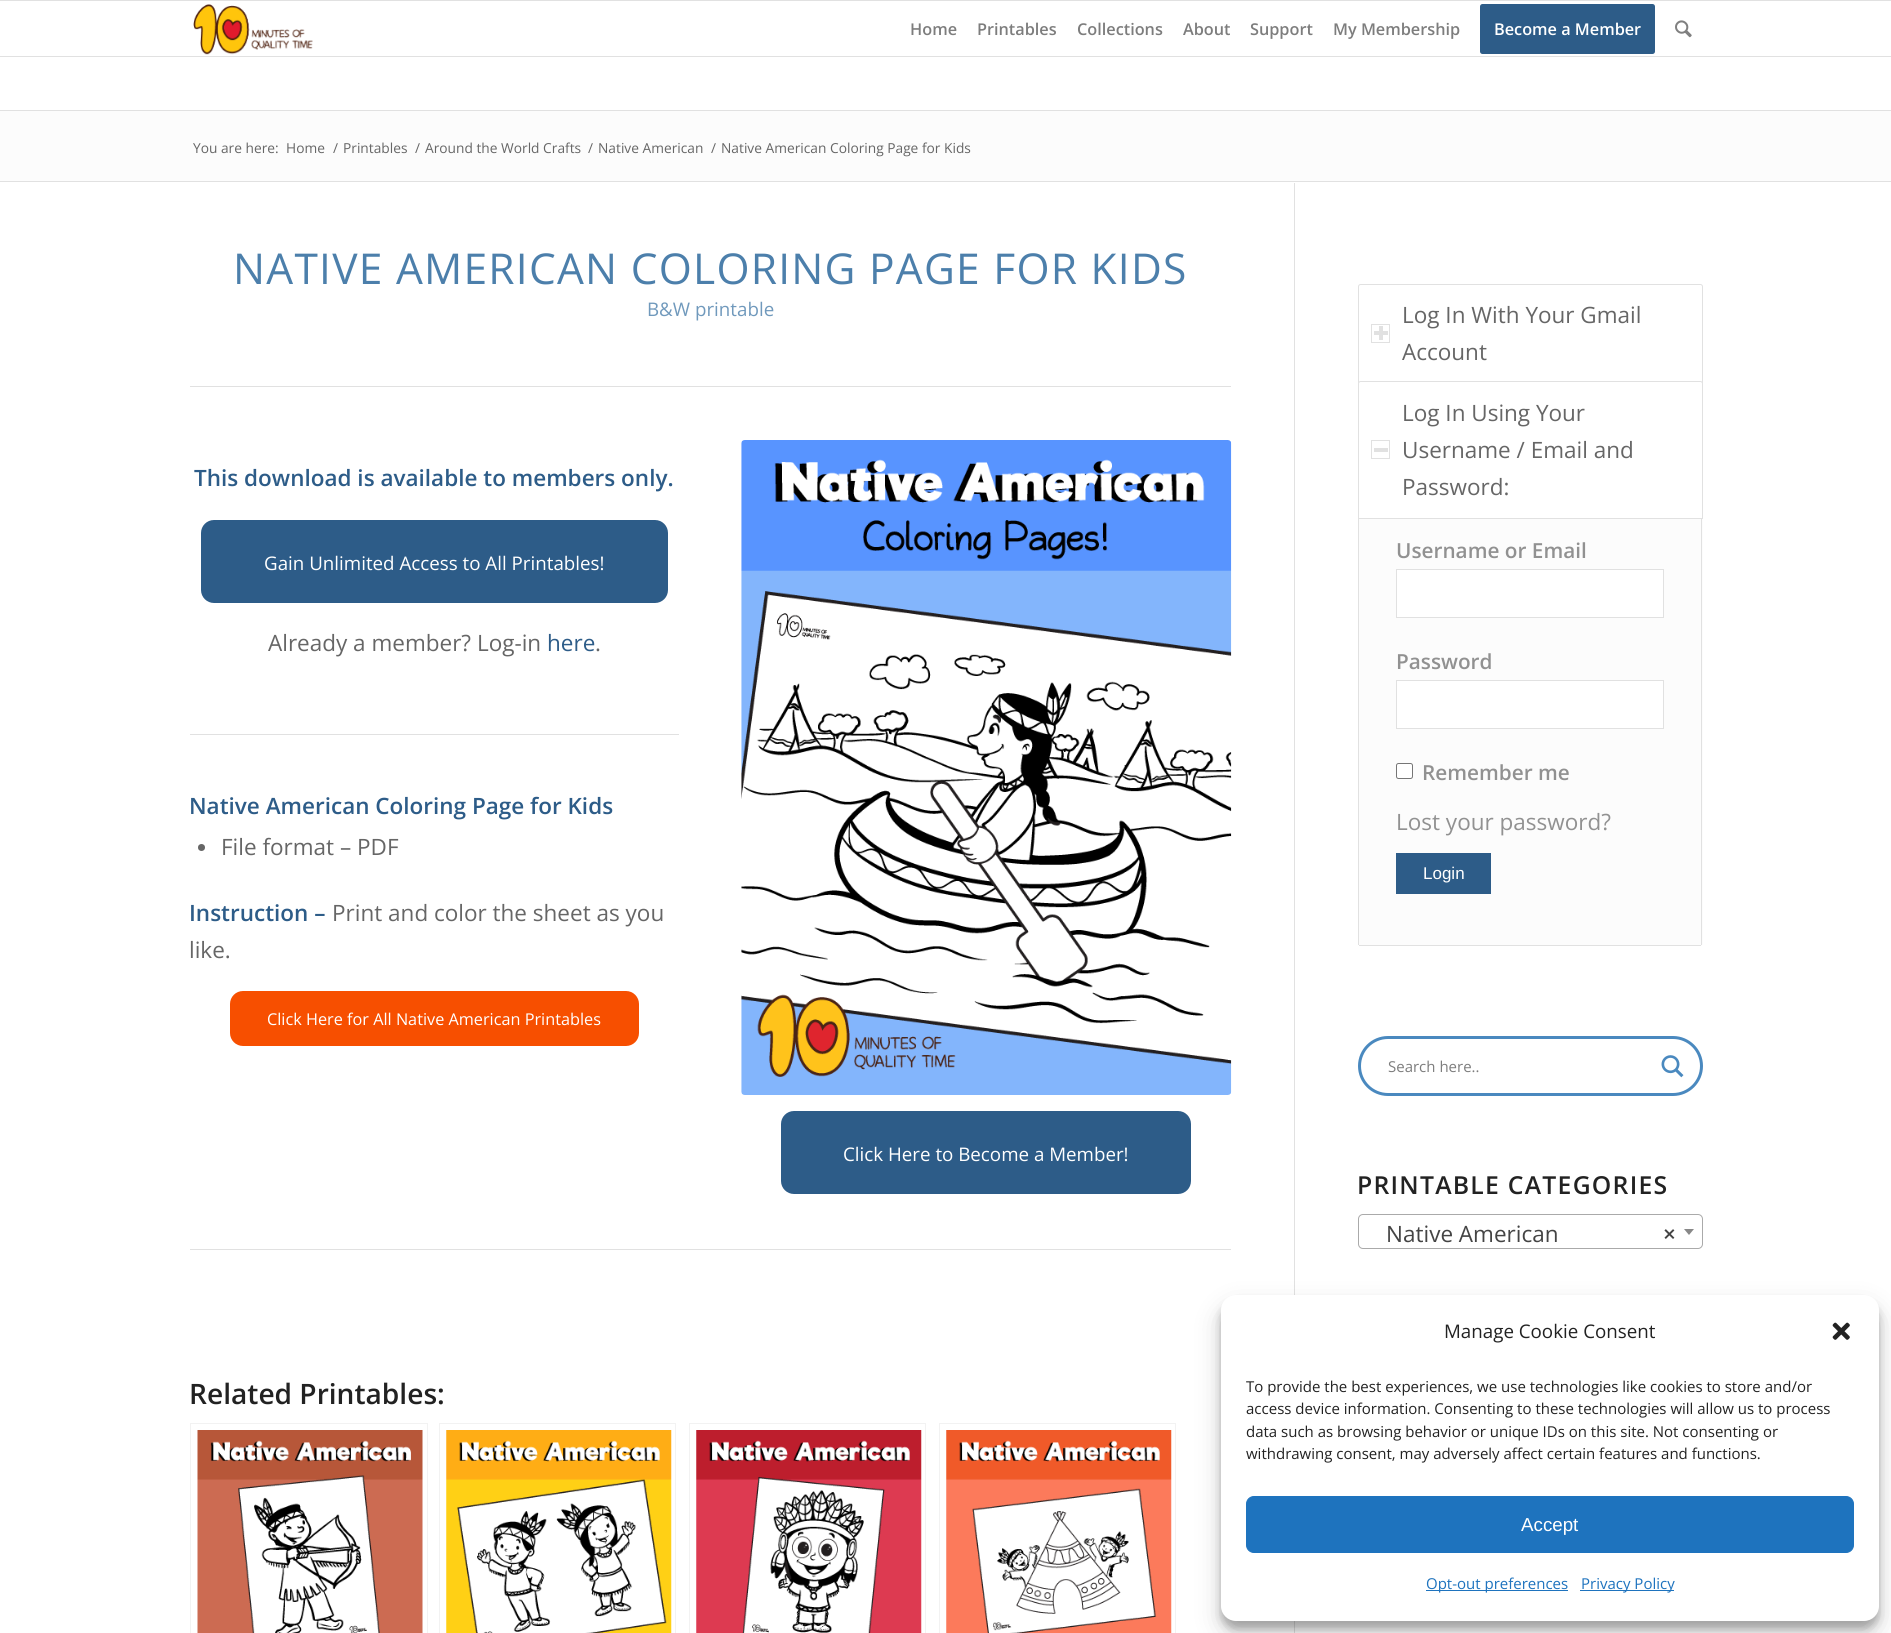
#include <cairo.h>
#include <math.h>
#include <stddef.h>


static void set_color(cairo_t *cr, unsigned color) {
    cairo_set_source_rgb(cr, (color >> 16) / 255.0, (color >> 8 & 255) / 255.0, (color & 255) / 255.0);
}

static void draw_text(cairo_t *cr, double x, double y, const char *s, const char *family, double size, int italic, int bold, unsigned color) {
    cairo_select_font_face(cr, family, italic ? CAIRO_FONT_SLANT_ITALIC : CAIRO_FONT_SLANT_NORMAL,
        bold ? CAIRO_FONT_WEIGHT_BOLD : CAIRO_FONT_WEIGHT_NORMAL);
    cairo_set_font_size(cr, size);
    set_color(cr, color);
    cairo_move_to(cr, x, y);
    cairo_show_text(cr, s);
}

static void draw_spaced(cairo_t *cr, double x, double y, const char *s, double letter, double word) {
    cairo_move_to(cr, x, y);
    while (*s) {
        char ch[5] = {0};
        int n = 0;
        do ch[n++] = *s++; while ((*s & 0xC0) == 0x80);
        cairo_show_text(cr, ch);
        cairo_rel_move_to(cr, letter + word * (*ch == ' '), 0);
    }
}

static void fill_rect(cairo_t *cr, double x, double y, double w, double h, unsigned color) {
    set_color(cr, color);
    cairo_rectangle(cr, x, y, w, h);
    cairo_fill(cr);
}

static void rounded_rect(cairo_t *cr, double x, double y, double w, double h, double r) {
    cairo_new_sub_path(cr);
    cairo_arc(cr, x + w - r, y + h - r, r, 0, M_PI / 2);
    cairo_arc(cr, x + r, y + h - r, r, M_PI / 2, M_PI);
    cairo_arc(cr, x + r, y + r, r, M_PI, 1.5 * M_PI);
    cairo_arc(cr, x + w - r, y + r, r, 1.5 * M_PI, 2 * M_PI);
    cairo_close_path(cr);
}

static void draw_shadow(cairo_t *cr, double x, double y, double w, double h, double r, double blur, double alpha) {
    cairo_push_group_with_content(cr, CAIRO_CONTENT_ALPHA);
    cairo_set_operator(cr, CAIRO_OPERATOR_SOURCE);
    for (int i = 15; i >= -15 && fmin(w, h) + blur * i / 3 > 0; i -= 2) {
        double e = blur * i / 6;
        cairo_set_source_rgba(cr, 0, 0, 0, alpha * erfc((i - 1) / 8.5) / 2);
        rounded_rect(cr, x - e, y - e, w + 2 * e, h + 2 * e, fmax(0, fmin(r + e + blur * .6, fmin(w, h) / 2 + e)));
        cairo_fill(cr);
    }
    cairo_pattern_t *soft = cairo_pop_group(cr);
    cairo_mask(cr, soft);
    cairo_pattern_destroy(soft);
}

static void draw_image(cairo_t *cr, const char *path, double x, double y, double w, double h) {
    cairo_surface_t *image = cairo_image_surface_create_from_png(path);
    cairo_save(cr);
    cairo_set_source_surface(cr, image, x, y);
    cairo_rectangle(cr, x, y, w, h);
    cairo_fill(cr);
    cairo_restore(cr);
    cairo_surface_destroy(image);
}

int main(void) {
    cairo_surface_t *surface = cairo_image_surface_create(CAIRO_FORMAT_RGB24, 1891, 1633);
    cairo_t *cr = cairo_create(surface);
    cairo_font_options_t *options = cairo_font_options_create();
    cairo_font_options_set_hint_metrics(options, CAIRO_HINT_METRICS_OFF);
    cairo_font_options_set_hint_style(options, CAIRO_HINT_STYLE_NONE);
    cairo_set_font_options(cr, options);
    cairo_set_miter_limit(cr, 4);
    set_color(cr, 0xFFFFFF);
    cairo_paint(cr);
    fill_rect(cr, 0, 0, 1891, 1, 0xE1E1E1);
    fill_rect(cr, 0, 56, 1891, 1, 0xE1E1E1);
    draw_image(cr, "assets/img1.png", 193, 4, 120, 51);
    draw_text(cr, 910, 35, "Home", "Open Sans SemiBold", 16.25, 0, 0, 0x7D7D7D);
    draw_text(cr, 977, 35, "Printables", "Open Sans SemiBold", 16.25, 0, 0, 0x7D7D7D);
    draw_text(cr, 1077, 35, "Collections", "Open Sans SemiBold", 16.25, 0, 0, 0x7D7D7D);
    draw_text(cr, 1183, 35, "About", "Open Sans SemiBold", 16.25, 0, 0, 0x7D7D7D);
    draw_text(cr, 1250, 35, "Support", "Open Sans SemiBold", 16.25, 0, 0, 0x7D7D7D);
    draw_text(cr, 1333, 35, "My Membership", "Open Sans SemiBold", 16.25, 0, 0, 0x7D7D7D);
    set_color(cr, 0x2D5C88);
    rounded_rect(cr, 1481.5, 5.5, 172, 47, 1);
    cairo_fill_preserve(cr);
    cairo_set_line_width(cr, 3);
    cairo_stroke(cr);
    draw_text(cr, 1494, 35, "Become a Member", "Open Sans SemiBold", 16.25, 0, 0, 0xFFFFFF);
    draw_image(cr, "assets/img2.png", 1675, 20, 17, 18);
    fill_rect(cr, 0, 111, 1891, 70, 0xFCFCFC);
    fill_rect(cr, 0, 110, 1891, 1, 0xE1E1E1);
    draw_text(cr, 193, 153, "You are here:", "Open Sans", 13.75, 0, 0, 0x666666);
    draw_text(cr, 286, 153, "Home", "Open Sans", 13.75, 0, 0, 0x666666);
    draw_text(cr, 333, 153, "/", "Open Sans", 13.75, 0, 0, 0x666666);
    draw_text(cr, 343, 153, "Printables", "Open Sans", 13.75, 0, 0, 0x666666);
    draw_text(cr, 415, 153, "/", "Open Sans", 13.75, 0, 0, 0x666666);
    draw_text(cr, 425, 153, "Around the World Crafts", "Open Sans", 13.75, 0, 0, 0x666666);
    draw_text(cr, 588, 153, "/", "Open Sans", 13.75, 0, 0, 0x666666);
    draw_text(cr, 598, 153, "Native American", "Open Sans", 13.75, 0, 0, 0x666666);
    draw_text(cr, 711, 153, "/", "Open Sans", 13.75, 0, 0, 0x666666);
    draw_text(cr, 721, 153, "Native American Coloring Page for Kids", "Open Sans", 13.75, 0, 0, 0x666666);
    fill_rect(cr, 0, 181, 1891, 1, 0xE1E1E1);
    fill_rect(cr, 1294, 183, 1, 1450, 0xE1E1E1);
    cairo_set_font_size(cr, 42.5);
    set_color(cr, 0x4C7FAB);
    draw_spaced(cr, 233, 284, "NATIVE AMERICAN COLORING PAGE FOR KIDS", 1.25, 0);
    draw_text(cr, 647, 316, "B&W printable", "Open Sans", 18.75, 0, 0, 0x7099BC);
    fill_rect(cr, 190, 386, 1041, 1, 0xE1E1E1);
    draw_text(cr, 194, 486, "This download is available to members only.", "Open Sans SemiBold", 22.5, 0, 0, 0x2D5C88);
    rounded_rect(cr, 201, 520, 467, 83, 13);
    cairo_fill(cr);
    draw_text(cr, 264, 570, "Gain Unlimited Access to All Printables!", "Open Sans", 18.75, 0, 0, 0xFFFFFF);
    draw_text(cr, 268, 651, "Already a member? Log-in", "Open Sans", 22.5, 0, 0, 0x666666);
    draw_text(cr, 547, 651, "here", "Open Sans", 22.5, 0, 0, 0x2D5C88);
    draw_text(cr, 595, 651, ".", "Open Sans", 22.5, 0, 0, 0x666666);
    fill_rect(cr, 190, 734, 489, 1, 0xE1E1E1);
    draw_text(cr, 189, 814, "Native American Coloring Page for Kids", "Open Sans SemiBold", 22.5, 0, 0, 0x2D5C88);
    set_color(cr, 0x666666);
    cairo_new_path(cr);
    cairo_arc(cr, 201.5, 847.5, 3.5, 0, 2 * M_PI);
    cairo_fill(cr);
    draw_text(cr, 221, 855, "File format – PDF", "Open Sans", 22.5, 0, 0, 0x666666);
    draw_text(cr, 189, 921, "Instruction –", "Open Sans SemiBold", 22.5, 0, 0, 0x2D5C88);
    draw_text(cr, 332, 921, "Print and color the sheet as you", "Open Sans", 22.5, 0, 0, 0x666666);
    draw_text(cr, 189, 958, "like.", "Open Sans", 22.5, 0, 0, 0x666666);
    set_color(cr, 0xF74F00);
    rounded_rect(cr, 230, 991, 409, 55, 13);
    cairo_fill(cr);
    draw_text(cr, 267, 1025, "Click Here for All Native American Printables", "Open Sans", 16.25, 0, 0, 0xFFFFFF);
    draw_image(cr, "assets/img3.png", 741, 440, 491, 655);
    set_color(cr, 0x2D5C88);
    rounded_rect(cr, 781, 1111, 410, 83, 13);
    cairo_fill(cr);
    draw_text(cr, 843, 1161, "Click Here to Become a Member!", "Open Sans", 18.75, 0, 0, 0xFFFFFF);
    fill_rect(cr, 190, 1249, 1041, 1, 0xE1E1E1);
    draw_text(cr, 189, 1404, "Related Printables:", "Open Sans SemiBold", 28.1, 0, 0, 0x222222);
    cairo_rectangle(cr, 190.5, 1423.5, 237, 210);
    set_color(cr, 0xF2F2F2);
    cairo_set_line_width(cr, 1);
    cairo_stroke(cr);
    draw_image(cr, "assets/img4.png", 197, 1430, 226, 203);
    cairo_rectangle(cr, 439.5, 1423.5, 236, 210);
    cairo_stroke(cr);
    draw_image(cr, "assets/img5.png", 446, 1430, 226, 203);
    cairo_rectangle(cr, 689.5, 1423.5, 236, 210);
    cairo_stroke(cr);
    draw_image(cr, "assets/img6.png", 696, 1430, 226, 203);
    cairo_rectangle(cr, 939.5, 1423.5, 236, 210);
    cairo_stroke(cr);
    draw_image(cr, "assets/img7.png", 946, 1430, 226, 203);
    cairo_new_path(cr);
    cairo_move_to(cr, 1360.5, 284.5);
    cairo_line_to(cr, 1700.5, 284.5);
    cairo_curve_to(cr, 1701.5, 284.5, 1702.5, 285.5, 1702.5, 286.5);
    cairo_line_to(cr, 1702.5, 382.5);
    cairo_line_to(cr, 1358.5, 382.5);
    cairo_line_to(cr, 1358.5, 286.5);
    cairo_curve_to(cr, 1358.5, 285.5, 1359.5, 284.5, 1360.5, 284.5);
    cairo_close_path(cr);
    set_color(cr, 0xE1E1E1);
    cairo_stroke(cr);
    draw_text(cr, 1402, 323, "Log In With Your Gmail", "Open Sans", 22.5, 0, 0, 0x666666);
    cairo_rectangle(cr, 1371.5, 324.5, 18, 18);
    set_color(cr, 0xE1E1E1);
    cairo_stroke(cr);
    fill_rect(cr, 1379, 326, 4, 14, 0xE1E1E1);
    fill_rect(cr, 1374, 331, 14, 4, 0xE1E1E1);
    draw_text(cr, 1402, 360, "Account", "Open Sans", 22.5, 0, 0, 0x666666);
    set_color(cr, 0xFCFCFC);
    cairo_new_path(cr);
    cairo_move_to(cr, 1358, 518);
    cairo_line_to(cr, 1703, 518);
    cairo_line_to(cr, 1703, 943.5);
    cairo_curve_to(cr, 1703, 945, 1702, 946, 1700.5, 946);
    cairo_line_to(cr, 1360.5, 946);
    cairo_curve_to(cr, 1359, 946, 1358, 945, 1358, 943.5);
    cairo_close_path(cr);
    cairo_fill(cr);
    fill_rect(cr, 1701, 518, 1, 427, 0xE1E1E1);
    fill_rect(cr, 1358, 518, 1, 427, 0xE1E1E1);
    set_color(cr, 0xFFFFFF);
    cairo_new_path(cr);
    cairo_move_to(cr, 1360.5, 381.5);
    cairo_line_to(cr, 1700.5, 381.5);
    cairo_curve_to(cr, 1701.5, 381.5, 1702.5, 382.5, 1702.5, 383.5);
    cairo_line_to(cr, 1702.5, 518.5);
    cairo_line_to(cr, 1358.5, 518.5);
    cairo_line_to(cr, 1358.5, 383.5);
    cairo_curve_to(cr, 1358.5, 382.5, 1359.5, 381.5, 1360.5, 381.5);
    cairo_close_path(cr);
    cairo_fill_preserve(cr);
    set_color(cr, 0xE1E1E1);
    cairo_stroke(cr);
    draw_text(cr, 1402, 421, "Log In Using Your", "Open Sans", 22.5, 0, 0, 0x666666);
    cairo_rectangle(cr, 1371.5, 440.5, 18, 18);
    set_color(cr, 0xE1E1E1);
    cairo_stroke(cr);
    fill_rect(cr, 1374, 448, 14, 4, 0xE1E1E1);
    draw_text(cr, 1402, 458, "Username / Email and", "Open Sans", 22.5, 0, 0, 0x666666);
    draw_text(cr, 1402, 495, "Password:", "Open Sans", 22.5, 0, 0, 0x666666);
    fill_rect(cr, 1359, 945, 342, 1, 0xE1E1E1);
    draw_text(cr, 1396, 558, "Username or Email", "Open Sans SemiBold", 20.75, 0, 0, 0x919191);
    set_color(cr, 0xFFFFFF);
    cairo_rectangle(cr, 1396.5, 569.5, 267, 48);
    cairo_fill_preserve(cr);
    set_color(cr, 0xE1E1E1);
    cairo_stroke(cr);
    draw_text(cr, 1396, 669, "Password", "Open Sans SemiBold", 20.75, 0, 0, 0x919191);
    set_color(cr, 0xFFFFFF);
    cairo_rectangle(cr, 1396.5, 680.5, 267, 48);
    cairo_fill_preserve(cr);
    set_color(cr, 0xE1E1E1);
    cairo_stroke(cr);
    set_color(cr, 0xFFFFFF);
    rounded_rect(cr, 1396.5, 763.5, 16, 15, 2);
    cairo_fill_preserve(cr);
    set_color(cr, 0x767676);
    cairo_stroke(cr);
    draw_text(cr, 1422, 780, "Remember me", "Open Sans SemiBold", 20.75, 0, 0, 0x919191);
    draw_text(cr, 1396, 830, "Lost your password?", "Open Sans", 22.5, 0, 0, 0x919191);
    fill_rect(cr, 1396, 853, 95, 41, 0x2D5C88);
    draw_text(cr, 1423, 879, "Login", "Liberation Sans", 17, 0, 0, 0xFFFFFF);
    rounded_rect(cr, 1359.5, 1037.5, 342, 57, 28.5);
    set_color(cr, 0x4A89BF);
    cairo_set_line_width(cr, 3);
    cairo_stroke(cr);
    draw_text(cr, 1388, 1072, "Search here..", "Open Sans", 15, 0, 0, 0x7D7D7D);
    draw_image(cr, "assets/img8.png", 1661, 1055, 23, 23);
    cairo_select_font_face(cr, "Open Sans SemiBold", CAIRO_FONT_SLANT_NORMAL, CAIRO_FONT_WEIGHT_NORMAL);
    cairo_set_font_size(cr, 24.75);
    set_color(cr, 0x222222);
    draw_spaced(cr, 1357, 1194, "PRINTABLE CATEGORIES", 1.25, 0);
    rounded_rect(cr, 1358.5, 1214.5, 344, 34, 4.5);
    set_color(cr, 0xAAAAAA);
    cairo_set_line_width(cr, 1);
    cairo_stroke(cr);
    draw_text(cr, 1386, 1242, "Native American", "Open Sans", 22.5, 0, 0, 0x444444);
    draw_text(cr, 1663, 1242, "×", "Open Sans SemiBold", 22.5, 0, 0, 0x444444);
    set_color(cr, 0x888888);
    cairo_new_path(cr);
    cairo_move_to(cr, 1684, 1229);
    cairo_line_to(cr, 1694, 1229);
    cairo_line_to(cr, 1689, 1235);
    cairo_close_path(cr);
    cairo_fill(cr);
    set_color(cr, 0x000000);
    draw_shadow(cr, 1221, 1303, 658, 326, 15, 4, 0.23);
    draw_shadow(cr, 1221, 1308, 658, 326, 15, 12.5, 0.19);
    set_color(cr, 0xFFFFFF);
    rounded_rect(cr, 1221, 1295, 658, 326, 15);
    cairo_fill(cr);
    draw_text(cr, 1444, 1338, "Manage Cookie Consent", "Open Sans", 18.75, 0, 0, 0x222222);
    draw_image(cr, "assets/img9.png", 1832, 1322, 18, 18);
    draw_text(cr, 1246, 1392, "To provide the best experiences, we use technologies like cookies to store and/or", "Open Sans", 15, 0, 0, 0x222222);
    draw_text(cr, 1246, 1414, "access device information. Consenting to these technologies will allow us to process", "Open Sans", 15, 0, 0, 0x222222);
    draw_text(cr, 1246, 1437, "data such as browsing behavior or unique IDs on this site. Not consenting or", "Open Sans", 15, 0, 0, 0x222222);
    draw_text(cr, 1246, 1459, "withdrawing consent, may adversely affect certain features and functions.", "Open Sans", 15, 0, 0, 0x222222);
    set_color(cr, 0x1E73BE);
    rounded_rect(cr, 1246.5, 1496.5, 607, 56, 7.5);
    cairo_fill_preserve(cr);
    cairo_stroke(cr);
    draw_text(cr, 1521, 1531, "Accept", "Liberation Sans", 18.75, 0, 0, 0xFFFFFF);
    fill_rect(cr, 1426, 1590, 142, 1, 0x1E73BE);
    draw_text(cr, 1426, 1589, "Opt-out preferences", "Open Sans", 15, 0, 0, 0x1E73BE);
    fill_rect(cr, 1580, 1590, 94, 1, 0x1E73BE);
    draw_text(cr, 1581, 1589, "Privacy Policy", "Open Sans", 15, 0, 0, 0x1E73BE);
    cairo_surface_write_to_png(surface, "output.png");
    cairo_font_options_destroy(options);
    cairo_destroy(cr);
    cairo_surface_destroy(surface);
    return 0;
}
